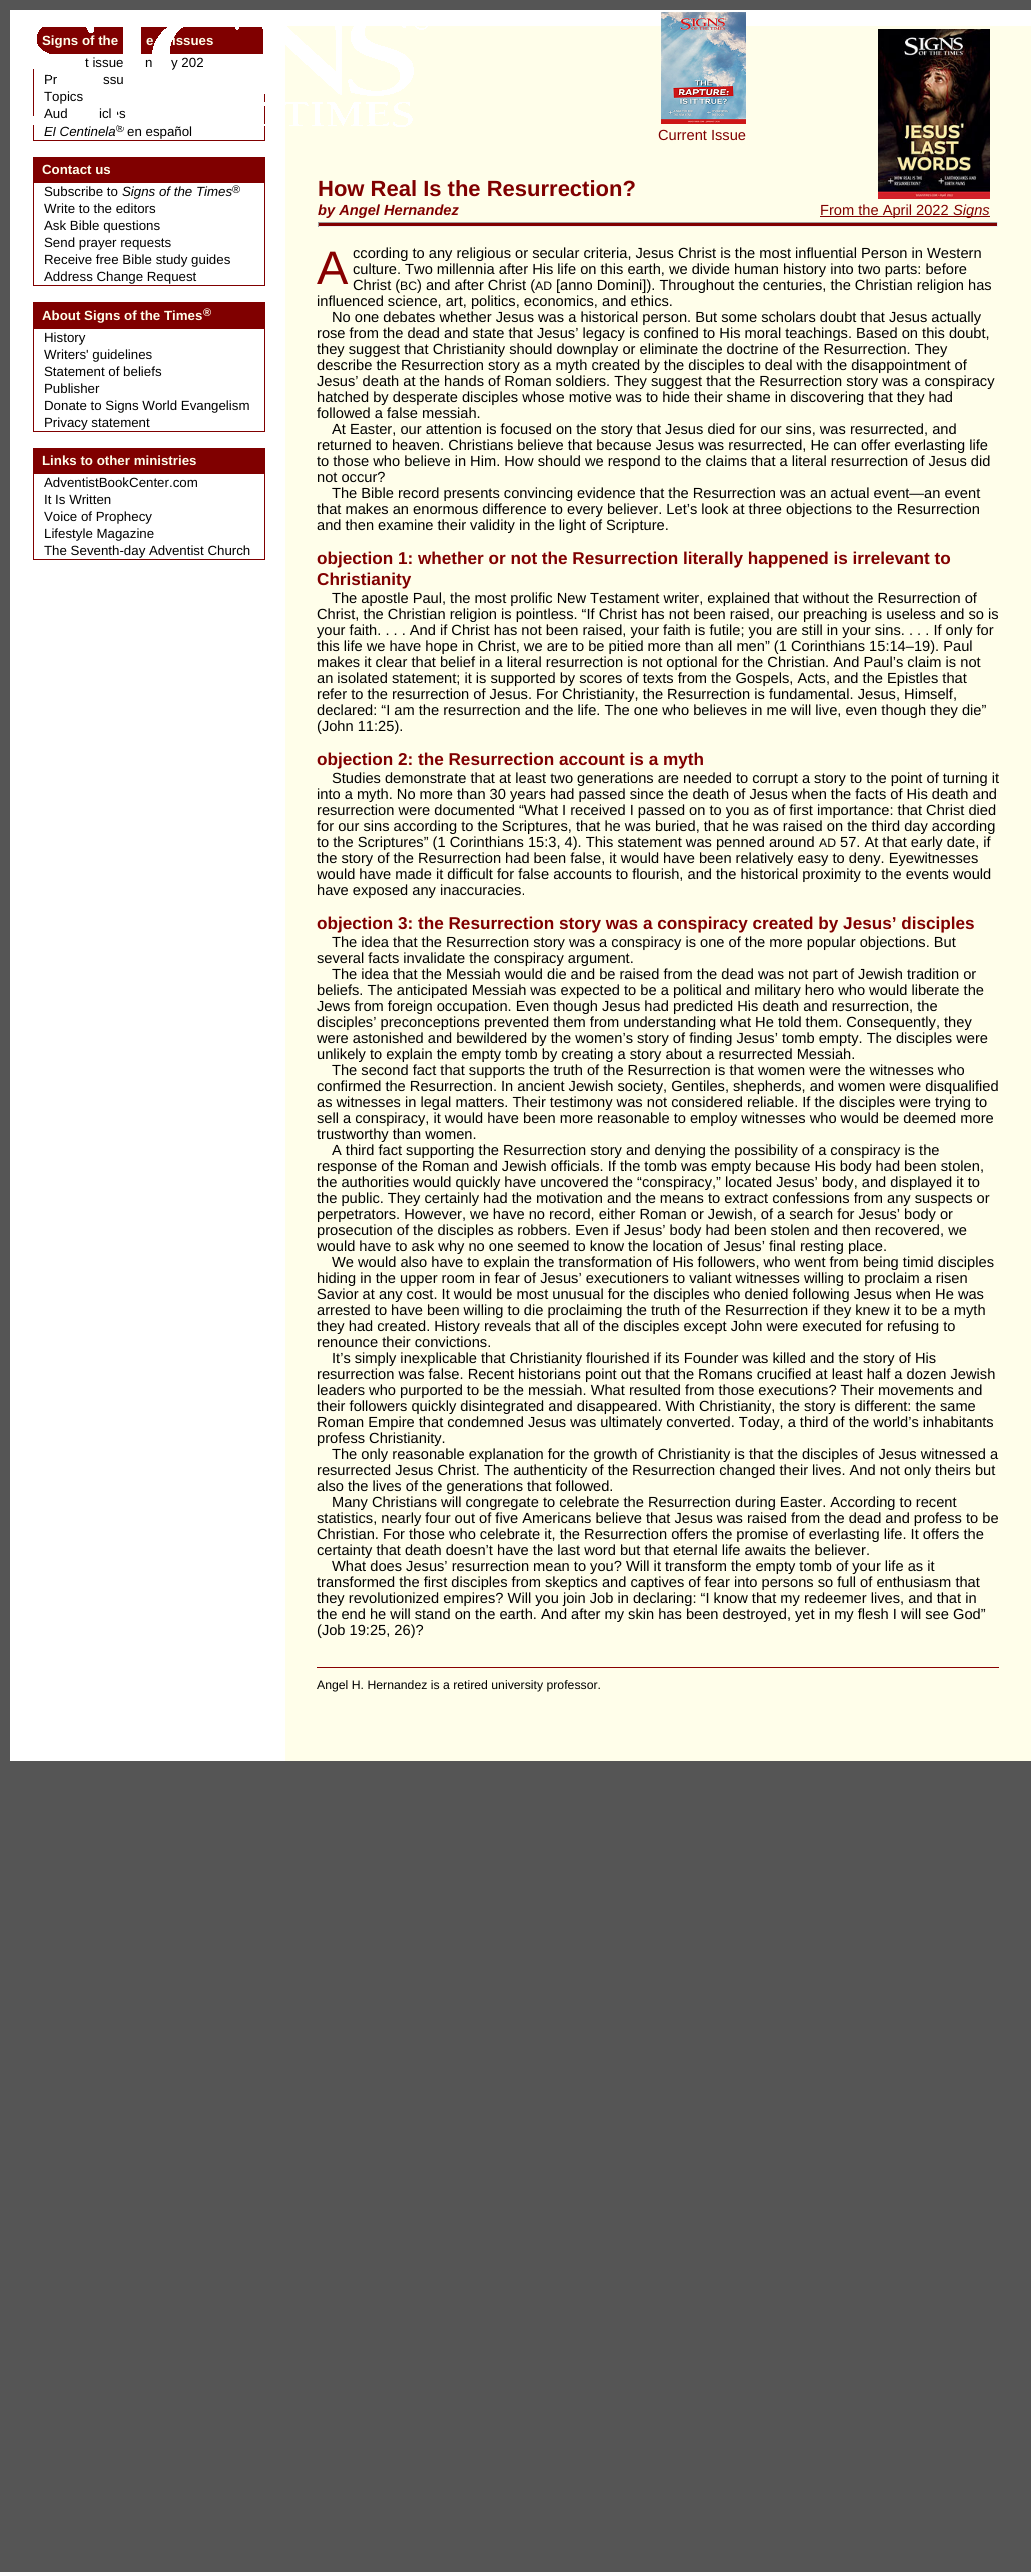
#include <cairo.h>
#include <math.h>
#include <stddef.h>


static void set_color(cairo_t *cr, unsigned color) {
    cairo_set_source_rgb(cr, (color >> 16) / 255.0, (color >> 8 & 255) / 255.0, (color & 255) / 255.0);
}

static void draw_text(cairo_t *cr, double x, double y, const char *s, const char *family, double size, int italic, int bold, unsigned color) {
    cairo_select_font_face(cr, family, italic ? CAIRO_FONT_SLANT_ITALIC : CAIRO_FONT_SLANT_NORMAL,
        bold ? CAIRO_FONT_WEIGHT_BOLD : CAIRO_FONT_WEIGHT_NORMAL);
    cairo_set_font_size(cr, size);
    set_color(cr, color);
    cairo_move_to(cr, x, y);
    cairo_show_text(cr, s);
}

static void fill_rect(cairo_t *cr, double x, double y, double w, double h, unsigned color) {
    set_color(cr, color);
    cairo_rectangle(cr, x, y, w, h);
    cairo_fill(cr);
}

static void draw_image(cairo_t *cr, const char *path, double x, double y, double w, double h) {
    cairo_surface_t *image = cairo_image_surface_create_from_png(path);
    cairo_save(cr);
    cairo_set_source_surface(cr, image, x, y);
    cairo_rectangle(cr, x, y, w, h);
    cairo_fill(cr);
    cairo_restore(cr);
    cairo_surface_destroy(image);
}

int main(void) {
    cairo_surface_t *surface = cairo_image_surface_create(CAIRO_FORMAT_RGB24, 1031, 2572);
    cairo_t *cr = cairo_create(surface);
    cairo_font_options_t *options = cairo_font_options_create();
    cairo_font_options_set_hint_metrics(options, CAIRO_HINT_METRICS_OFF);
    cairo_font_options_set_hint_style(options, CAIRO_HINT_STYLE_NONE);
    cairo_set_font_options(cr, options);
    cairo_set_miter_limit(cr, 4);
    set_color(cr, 0x555555);
    cairo_paint(cr);
    fill_rect(cr, 10, 10, 1021, 1751, 0xFFFFFF);
    cairo_rectangle(cr, 33.5, 27.5, 231, 113);
    set_color(cr, 0x800000);
    cairo_set_line_width(cr, 1);
    cairo_stroke(cr);
    fill_rect(cr, 37, 28, 226, 26, 0x800000);
    draw_text(cr, 42, 45, "Signs of the", "Liberation Sans", 13.3, 0, 1, 0xFFFEEA);
    draw_text(cr, 146, 45, "e", "Liberation Sans", 13.3, 0, 1, 0xFFFEEA);
    draw_text(cr, 172, 45, "issues", "Liberation Sans", 13.3, 0, 1, 0xFFFEEA);
    draw_text(cr, 85, 67, "t issue", "Liberation Sans", 13.3, 0, 0, 0x000000);
    draw_text(cr, 145, 67, "n", "Liberation Sans", 13.3, 0, 0, 0x000000);
    draw_text(cr, 171, 67, "y 202", "Liberation Sans", 13.3, 0, 0, 0x000000);
    draw_text(cr, 44, 84, "Pr", "Liberation Sans", 13.3, 0, 0, 0x000000);
    draw_text(cr, 103, 84, "ssu", "Liberation Sans", 13.3, 0, 0, 0x000000);
    draw_text(cr, 44, 101, "Topics", "Liberation Sans", 13.3, 0, 0, 0x000000);
    draw_text(cr, 44, 118, "Aud", "Liberation Sans", 13.3, 0, 0, 0x000000);
    draw_text(cr, 99, 118, "icles", "Liberation Sans", 13.3, 0, 0, 0x000000);
    draw_text(cr, 44, 136, "El Centinela", "Liberation Sans", 13.3, 1, 0, 0x000000);
    draw_text(cr, 116, 132, "®", "Liberation Sans", 11, 0, 0, 0x000000);
    draw_text(cr, 127, 136, "en español", "Liberation Sans", 13.3, 0, 0, 0x000000);
    fill_rect(cr, 285, 26, 746, 1735, 0xFFFEEA);
    draw_image(cr, "assets/img1.png", 33, 26, 395, 101);
    cairo_rectangle(cr, 33.5, 157.5, 231, 128);
    set_color(cr, 0x800000);
    cairo_stroke(cr);
    fill_rect(cr, 34, 158, 230, 25, 0x800000);
    draw_text(cr, 42, 174, "Contact us", "Liberation Sans", 13.3, 0, 1, 0xFFFEEA);
    draw_text(cr, 44, 196, "Subscribe to", "Liberation Sans", 13.3, 0, 0, 0x000000);
    draw_text(cr, 122, 196, "Signs of the Times", "Liberation Sans", 13.3, 1, 0, 0x000000);
    draw_text(cr, 232, 193, "®", "Liberation Sans", 11, 0, 0, 0x000000);
    draw_text(cr, 44, 213, "Write to the editors", "Liberation Sans", 13.3, 0, 0, 0x000000);
    draw_text(cr, 44, 230, "Ask Bible questions", "Liberation Sans", 13.3, 0, 0, 0x000000);
    draw_text(cr, 44, 247, "Send prayer requests", "Liberation Sans", 13.3, 0, 0, 0x000000);
    draw_text(cr, 44, 264, "Receive free Bible study guides", "Liberation Sans", 13.3, 0, 0, 0x000000);
    draw_text(cr, 44, 281, "Address Change Request", "Liberation Sans", 13.3, 0, 0, 0x000000);
    cairo_rectangle(cr, 33.5, 302.5, 231, 129);
    set_color(cr, 0x800000);
    cairo_stroke(cr);
    fill_rect(cr, 34, 303, 230, 26, 0x800000);
    draw_text(cr, 42, 320, "About Signs of the Times", "Liberation Sans", 13.3, 0, 1, 0xFFFEEA);
    draw_text(cr, 203, 316, "®", "Liberation Sans", 11, 0, 1, 0xFFFEEA);
    draw_text(cr, 44, 342, "History", "Liberation Sans", 13.3, 0, 0, 0x000000);
    draw_text(cr, 44, 359, "Writers' guidelines", "Liberation Sans", 13.3, 0, 0, 0x000000);
    draw_text(cr, 44, 376, "Statement of beliefs", "Liberation Sans", 13.3, 0, 0, 0x000000);
    draw_text(cr, 44, 393, "Publisher", "Liberation Sans", 13.3, 0, 0, 0x000000);
    draw_text(cr, 44, 410, "Donate to Signs World Evangelism", "Liberation Sans", 13.3, 0, 0, 0x000000);
    draw_text(cr, 44, 427, "Privacy statement", "Liberation Sans", 13.3, 0, 0, 0x000000);
    cairo_rectangle(cr, 33.5, 448.5, 231, 111);
    set_color(cr, 0x800000);
    cairo_stroke(cr);
    fill_rect(cr, 34, 449, 230, 25, 0x800000);
    draw_text(cr, 42, 465, "Links to other ministries", "Liberation Sans", 13.3, 0, 1, 0xFFFEEA);
    draw_text(cr, 44, 487, "AdventistBookCenter.com", "Liberation Sans", 13.3, 0, 0, 0x000000);
    draw_text(cr, 44, 504, "It Is Written", "Liberation Sans", 13.3, 0, 0, 0x000000);
    draw_text(cr, 44, 521, "Voice of Prophecy", "Liberation Sans", 13.3, 0, 0, 0x000000);
    draw_text(cr, 44, 538, "Lifestyle Magazine", "Liberation Sans", 13.3, 0, 0, 0x000000);
    draw_text(cr, 44, 555, "The Seventh-day Adventist Church", "Liberation Sans", 13.3, 0, 0, 0x000000);
    draw_text(cr, 318, 196, "How Real Is the Resurrection?", "Liberation Sans", 22, 0, 1, 0x800000);
    draw_text(cr, 318, 215, "by Angel Hernandez", "Liberation Sans", 14.65, 1, 1, 0x800000);
    draw_image(cr, "assets/img2.png", 878, 29, 112, 170);
    fill_rect(cr, 820, 216, 170, 1, 0x800000);
    draw_text(cr, 820, 215, "From the April 2022", "Liberation Sans", 14.65, 0, 0, 0x800000);
    draw_text(cr, 953, 215, "Signs", "Liberation Sans", 14.65, 1, 0, 0x800000);
    fill_rect(cr, 318, 223, 680, 3, 0x800000);
    fill_rect(cr, 318, 222, 680, 1, 0x9F9F9F);
    fill_rect(cr, 997, 222, 1, 5, 0xEEEEEE);
    fill_rect(cr, 318, 226, 680, 1, 0xEEEEEE);
    fill_rect(cr, 318, 222, 1, 5, 0x9F9F9F);
    draw_text(cr, 317, 284, "A", "Liberation Sans", 47, 0, 0, 0x880000);
    draw_text(cr, 353, 258, "ccording to any religious or secular criteria, Jesus Christ is the most influential Person in Western", "Liberation Sans", 14.65, 0, 0, 0x000000);
    draw_text(cr, 353, 274, "culture. Two millennia after His life on this earth, we divide human history into two parts: before", "Liberation Sans", 14.65, 0, 0, 0x000000);
    draw_text(cr, 353, 290, "Christ (", "Liberation Sans", 14.65, 0, 0, 0x000000);
    draw_text(cr, 400, 290, "BC", "Liberation Sans", 12.25, 0, 0, 0x000000);
    draw_text(cr, 417, 290, ") and after Christ (", "Liberation Sans", 14.65, 0, 0, 0x000000);
    draw_text(cr, 535, 290, "AD", "Liberation Sans", 12.25, 0, 0, 0x000000);
    draw_text(cr, 556, 290, "[anno Domini]). Throughout the centuries, the Christian religion has", "Liberation Sans", 14.65, 0, 0, 0x000000);
    draw_text(cr, 317, 306, "influenced science, art, politics, economics, and ethics.", "Liberation Sans", 14.65, 0, 0, 0x000000);
    draw_text(cr, 332, 322, "No one debates whether Jesus was a historical person. But some scholars doubt that Jesus actually", "Liberation Sans", 14.65, 0, 0, 0x000000);
    draw_text(cr, 317, 338, "rose from the dead and state that Jesus’ legacy is confined to His moral teachings. Based on this doubt,", "Liberation Sans", 14.65, 0, 0, 0x000000);
    draw_text(cr, 317, 354, "they suggest that Christianity should downplay or eliminate the doctrine of the Resurrection. They", "Liberation Sans", 14.65, 0, 0, 0x000000);
    draw_text(cr, 317, 370, "describe the Resurrection story as a myth created by the disciples to deal with the disappointment of", "Liberation Sans", 14.65, 0, 0, 0x000000);
    draw_text(cr, 317, 386, "Jesus’ death at the hands of Roman soldiers. They suggest that the Resurrection story was a conspiracy", "Liberation Sans", 14.65, 0, 0, 0x000000);
    draw_text(cr, 317, 402, "hatched by desperate disciples whose motive was to hide their shame in discovering that they had", "Liberation Sans", 14.65, 0, 0, 0x000000);
    draw_text(cr, 317, 418, "followed a false messiah.", "Liberation Sans", 14.65, 0, 0, 0x000000);
    draw_text(cr, 332, 434, "At Easter, our attention is focused on the story that Jesus died for our sins, was resurrected, and", "Liberation Sans", 14.65, 0, 0, 0x000000);
    draw_text(cr, 317, 450, "returned to heaven. Christians believe that because Jesus was resurrected, He can offer everlasting life", "Liberation Sans", 14.65, 0, 0, 0x000000);
    draw_text(cr, 317, 466, "to those who believe in Him. How should we respond to the claims that a literal resurrection of Jesus did", "Liberation Sans", 14.65, 0, 0, 0x000000);
    draw_text(cr, 317, 482, "not occur?", "Liberation Sans", 14.65, 0, 0, 0x000000);
    draw_text(cr, 332, 498, "The Bible record presents convincing evidence that the Resurrection was an actual event—an event", "Liberation Sans", 14.65, 0, 0, 0x000000);
    draw_text(cr, 317, 514, "that makes an enormous difference to every believer. Let’s look at three objections to the Resurrection", "Liberation Sans", 14.65, 0, 0, 0x000000);
    draw_text(cr, 317, 530, "and then examine their validity in the light of Scripture.", "Liberation Sans", 14.65, 0, 0, 0x000000);
    draw_text(cr, 317, 564, "objection 1: whether or not the Resurrection literally happened is irrelevant to", "Liberation Sans", 17.15, 0, 1, 0x800000);
    draw_text(cr, 317, 585, "Christianity", "Liberation Sans", 17.15, 0, 1, 0x800000);
    draw_text(cr, 332, 603, "The apostle Paul, the most prolific New Testament writer, explained that without the Resurrection of", "Liberation Sans", 14.65, 0, 0, 0x000000);
    draw_text(cr, 317, 619, "Christ, the Christian religion is pointless. “If Christ has not been raised, our preaching is useless and so is", "Liberation Sans", 14.65, 0, 0, 0x000000);
    draw_text(cr, 317, 635, "your faith. . . . And if Christ has not been raised, your faith is futile; you are still in your sins. . . . If only for", "Liberation Sans", 14.65, 0, 0, 0x000000);
    draw_text(cr, 317, 651, "this life we have hope in Christ, we are to be pitied more than all men” (1 Corinthians 15:14–19). Paul", "Liberation Sans", 14.65, 0, 0, 0x000000);
    draw_text(cr, 317, 667, "makes it clear that belief in a literal resurrection is not optional for the Christian. And Paul’s claim is not", "Liberation Sans", 14.65, 0, 0, 0x000000);
    draw_text(cr, 317, 683, "an isolated statement; it is supported by scores of texts from the Gospels, Acts, and the Epistles that", "Liberation Sans", 14.65, 0, 0, 0x000000);
    draw_text(cr, 317, 699, "refer to the resurrection of Jesus. For Christianity, the Resurrection is fundamental. Jesus, Himself,", "Liberation Sans", 14.65, 0, 0, 0x000000);
    draw_text(cr, 317, 715, "declared: “I am the resurrection and the life. The one who believes in me will live, even though they die”", "Liberation Sans", 14.65, 0, 0, 0x000000);
    draw_text(cr, 317, 731, "(John 11:25).", "Liberation Sans", 14.65, 0, 0, 0x000000);
    draw_text(cr, 317, 765, "objection 2: the Resurrection account is a myth", "Liberation Sans", 17.15, 0, 1, 0x800000);
    draw_text(cr, 332, 783, "Studies demonstrate that at least two generations are needed to corrupt a story to the point of turning it", "Liberation Sans", 14.65, 0, 0, 0x000000);
    draw_text(cr, 317, 799, "into a myth. No more than 30 years had passed since the death of Jesus when the facts of His death and", "Liberation Sans", 14.65, 0, 0, 0x000000);
    draw_text(cr, 317, 815, "resurrection were documented “What I received I passed on to you as of first importance: that Christ died", "Liberation Sans", 14.65, 0, 0, 0x000000);
    draw_text(cr, 317, 831, "for our sins according to the Scriptures, that he was buried, that he was raised on the third day according", "Liberation Sans", 14.65, 0, 0, 0x000000);
    draw_text(cr, 317, 847, "to the Scriptures” (1 Corinthians 15:3, 4). This statement was penned around", "Liberation Sans", 14.65, 0, 0, 0x000000);
    draw_text(cr, 819, 847, "AD", "Liberation Sans", 12.25, 0, 0, 0x000000);
    draw_text(cr, 840, 847, "57. At that early date, if", "Liberation Sans", 14.65, 0, 0, 0x000000);
    draw_text(cr, 317, 863, "the story of the Resurrection had been false, it would have been relatively easy to deny. Eyewitnesses", "Liberation Sans", 14.65, 0, 0, 0x000000);
    draw_text(cr, 317, 879, "would have made it difficult for false accounts to flourish, and the historical proximity to the events would", "Liberation Sans", 14.65, 0, 0, 0x000000);
    draw_text(cr, 317, 895, "have exposed any inaccuracies.", "Liberation Sans", 14.65, 0, 0, 0x000000);
    draw_text(cr, 317, 929, "objection 3: the Resurrection story was a conspiracy created by Jesus’ disciples", "Liberation Sans", 17.15, 0, 1, 0x800000);
    draw_text(cr, 332, 947, "The idea that the Resurrection story was a conspiracy is one of the more popular objections. But", "Liberation Sans", 14.65, 0, 0, 0x000000);
    draw_text(cr, 317, 963, "several facts invalidate the conspiracy argument.", "Liberation Sans", 14.65, 0, 0, 0x000000);
    draw_text(cr, 332, 979, "The idea that the Messiah would die and be raised from the dead was not part of Jewish tradition or", "Liberation Sans", 14.65, 0, 0, 0x000000);
    draw_text(cr, 317, 995, "beliefs. The anticipated Messiah was expected to be a political and military hero who would liberate the", "Liberation Sans", 14.65, 0, 0, 0x000000);
    draw_text(cr, 317, 1011, "Jews from foreign occupation. Even though Jesus had predicted His death and resurrection, the", "Liberation Sans", 14.65, 0, 0, 0x000000);
    draw_text(cr, 317, 1027, "disciples’ preconceptions prevented them from understanding what He told them. Consequently, they", "Liberation Sans", 14.65, 0, 0, 0x000000);
    draw_text(cr, 317, 1043, "were astonished and bewildered by the women’s story of finding Jesus’ tomb empty. The disciples were", "Liberation Sans", 14.65, 0, 0, 0x000000);
    draw_text(cr, 317, 1059, "unlikely to explain the empty tomb by creating a story about a resurrected Messiah.", "Liberation Sans", 14.65, 0, 0, 0x000000);
    draw_text(cr, 332, 1075, "The second fact that supports the truth of the Resurrection is that women were the witnesses who", "Liberation Sans", 14.65, 0, 0, 0x000000);
    draw_text(cr, 317, 1091, "confirmed the Resurrection. In ancient Jewish society, Gentiles, shepherds, and women were disqualified", "Liberation Sans", 14.65, 0, 0, 0x000000);
    draw_text(cr, 317, 1107, "as witnesses in legal matters. Their testimony was not considered reliable. If the disciples were trying to", "Liberation Sans", 14.65, 0, 0, 0x000000);
    draw_text(cr, 317, 1123, "sell a conspiracy, it would have been more reasonable to employ witnesses who would be deemed more", "Liberation Sans", 14.65, 0, 0, 0x000000);
    draw_text(cr, 317, 1139, "trustworthy than women.", "Liberation Sans", 14.65, 0, 0, 0x000000);
    draw_text(cr, 332, 1155, "A third fact supporting the Resurrection story and denying the possibility of a conspiracy is the", "Liberation Sans", 14.65, 0, 0, 0x000000);
    draw_text(cr, 317, 1171, "response of the Roman and Jewish officials. If the tomb was empty because His body had been stolen,", "Liberation Sans", 14.65, 0, 0, 0x000000);
    draw_text(cr, 317, 1187, "the authorities would quickly have uncovered the “conspiracy,” located Jesus’ body, and displayed it to", "Liberation Sans", 14.65, 0, 0, 0x000000);
    draw_text(cr, 317, 1203, "the public. They certainly had the motivation and the means to extract confessions from any suspects or", "Liberation Sans", 14.65, 0, 0, 0x000000);
    draw_text(cr, 317, 1219, "perpetrators. However, we have no record, either Roman or Jewish, of a search for Jesus’ body or", "Liberation Sans", 14.65, 0, 0, 0x000000);
    draw_text(cr, 317, 1235, "prosecution of the disciples as robbers. Even if Jesus’ body had been stolen and then recovered, we", "Liberation Sans", 14.65, 0, 0, 0x000000);
    draw_text(cr, 317, 1251, "would have to ask why no one seemed to know the location of Jesus’ final resting place.", "Liberation Sans", 14.65, 0, 0, 0x000000);
    draw_text(cr, 332, 1267, "We would also have to explain the transformation of His followers, who went from being timid disciples", "Liberation Sans", 14.65, 0, 0, 0x000000);
    draw_text(cr, 317, 1283, "hiding in the upper room in fear of Jesus’ executioners to valiant witnesses willing to proclaim a risen", "Liberation Sans", 14.65, 0, 0, 0x000000);
    draw_text(cr, 317, 1299, "Savior at any cost. It would be most unusual for the disciples who denied following Jesus when He was", "Liberation Sans", 14.65, 0, 0, 0x000000);
    draw_text(cr, 317, 1315, "arrested to have been willing to die proclaiming the truth of the Resurrection if they knew it to be a myth", "Liberation Sans", 14.65, 0, 0, 0x000000);
    draw_text(cr, 317, 1331, "they had created. History reveals that all of the disciples except John were executed for refusing to", "Liberation Sans", 14.65, 0, 0, 0x000000);
    draw_text(cr, 317, 1347, "renounce their convictions.", "Liberation Sans", 14.65, 0, 0, 0x000000);
    draw_text(cr, 332, 1363, "It’s simply inexplicable that Christianity flourished if its Founder was killed and the story of His", "Liberation Sans", 14.65, 0, 0, 0x000000);
    draw_text(cr, 317, 1379, "resurrection was false. Recent historians point out that the Romans crucified at least half a dozen Jewish", "Liberation Sans", 14.65, 0, 0, 0x000000);
    draw_text(cr, 317, 1395, "leaders who purported to be the messiah. What resulted from those executions? Their movements and", "Liberation Sans", 14.65, 0, 0, 0x000000);
    draw_text(cr, 317, 1411, "their followers quickly disintegrated and disappeared. With Christianity, the story is different: the same", "Liberation Sans", 14.65, 0, 0, 0x000000);
    draw_text(cr, 317, 1427, "Roman Empire that condemned Jesus was ultimately converted. Today, a third of the world’s inhabitants", "Liberation Sans", 14.65, 0, 0, 0x000000);
    draw_text(cr, 317, 1443, "profess Christianity.", "Liberation Sans", 14.65, 0, 0, 0x000000);
    draw_text(cr, 332, 1459, "The only reasonable explanation for the growth of Christianity is that the disciples of Jesus witnessed a", "Liberation Sans", 14.65, 0, 0, 0x000000);
    draw_text(cr, 317, 1475, "resurrected Jesus Christ. The authenticity of the Resurrection changed their lives. And not only theirs but", "Liberation Sans", 14.65, 0, 0, 0x000000);
    draw_text(cr, 317, 1491, "also the lives of the generations that followed.", "Liberation Sans", 14.65, 0, 0, 0x000000);
    draw_text(cr, 332, 1507, "Many Christians will congregate to celebrate the Resurrection during Easter. According to recent", "Liberation Sans", 14.65, 0, 0, 0x000000);
    draw_text(cr, 317, 1523, "statistics, nearly four out of five Americans believe that Jesus was raised from the dead and profess to be", "Liberation Sans", 14.65, 0, 0, 0x000000);
    draw_text(cr, 317, 1539, "Christian. For those who celebrate it, the Resurrection offers the promise of everlasting life. It offers the", "Liberation Sans", 14.65, 0, 0, 0x000000);
    draw_text(cr, 317, 1555, "certainty that death doesn’t have the last word but that eternal life awaits the believer.", "Liberation Sans", 14.65, 0, 0, 0x000000);
    draw_text(cr, 332, 1571, "What does Jesus’ resurrection mean to you? Will it transform the empty tomb of your life as it", "Liberation Sans", 14.65, 0, 0, 0x000000);
    draw_text(cr, 317, 1587, "transformed the first disciples from skeptics and captives of fear into persons so full of enthusiasm that", "Liberation Sans", 14.65, 0, 0, 0x000000);
    draw_text(cr, 317, 1603, "they revolutionized empires? Will you join Job in declaring: “I know that my redeemer lives, and that in", "Liberation Sans", 14.65, 0, 0, 0x000000);
    draw_text(cr, 317, 1619, "the end he will stand on the earth. And after my skin has been destroyed, yet in my flesh I will see God”", "Liberation Sans", 14.65, 0, 0, 0x000000);
    draw_text(cr, 317, 1635, "(Job 19:25, 26)?", "Liberation Sans", 14.65, 0, 0, 0x000000);
    fill_rect(cr, 317, 1667, 682, 1, 0x880000);
    draw_text(cr, 317, 1689, "Angel H. Hernandez is a retired university professor.", "Liberation Sans", 12.25, 0, 0, 0x000000);
    draw_image(cr, "assets/img3.png", 661, 12, 85, 112);
    draw_text(cr, 658, 140, "Current Issue", "Liberation Sans", 14.65, 0, 0, 0x800000);
    cairo_surface_write_to_png(surface, "output.png");
    cairo_font_options_destroy(options);
    cairo_destroy(cr);
    cairo_surface_destroy(surface);
    return 0;
}
